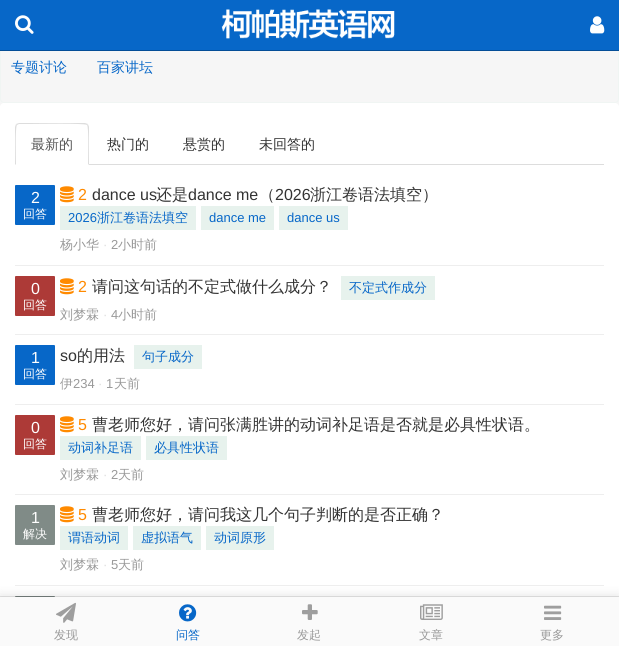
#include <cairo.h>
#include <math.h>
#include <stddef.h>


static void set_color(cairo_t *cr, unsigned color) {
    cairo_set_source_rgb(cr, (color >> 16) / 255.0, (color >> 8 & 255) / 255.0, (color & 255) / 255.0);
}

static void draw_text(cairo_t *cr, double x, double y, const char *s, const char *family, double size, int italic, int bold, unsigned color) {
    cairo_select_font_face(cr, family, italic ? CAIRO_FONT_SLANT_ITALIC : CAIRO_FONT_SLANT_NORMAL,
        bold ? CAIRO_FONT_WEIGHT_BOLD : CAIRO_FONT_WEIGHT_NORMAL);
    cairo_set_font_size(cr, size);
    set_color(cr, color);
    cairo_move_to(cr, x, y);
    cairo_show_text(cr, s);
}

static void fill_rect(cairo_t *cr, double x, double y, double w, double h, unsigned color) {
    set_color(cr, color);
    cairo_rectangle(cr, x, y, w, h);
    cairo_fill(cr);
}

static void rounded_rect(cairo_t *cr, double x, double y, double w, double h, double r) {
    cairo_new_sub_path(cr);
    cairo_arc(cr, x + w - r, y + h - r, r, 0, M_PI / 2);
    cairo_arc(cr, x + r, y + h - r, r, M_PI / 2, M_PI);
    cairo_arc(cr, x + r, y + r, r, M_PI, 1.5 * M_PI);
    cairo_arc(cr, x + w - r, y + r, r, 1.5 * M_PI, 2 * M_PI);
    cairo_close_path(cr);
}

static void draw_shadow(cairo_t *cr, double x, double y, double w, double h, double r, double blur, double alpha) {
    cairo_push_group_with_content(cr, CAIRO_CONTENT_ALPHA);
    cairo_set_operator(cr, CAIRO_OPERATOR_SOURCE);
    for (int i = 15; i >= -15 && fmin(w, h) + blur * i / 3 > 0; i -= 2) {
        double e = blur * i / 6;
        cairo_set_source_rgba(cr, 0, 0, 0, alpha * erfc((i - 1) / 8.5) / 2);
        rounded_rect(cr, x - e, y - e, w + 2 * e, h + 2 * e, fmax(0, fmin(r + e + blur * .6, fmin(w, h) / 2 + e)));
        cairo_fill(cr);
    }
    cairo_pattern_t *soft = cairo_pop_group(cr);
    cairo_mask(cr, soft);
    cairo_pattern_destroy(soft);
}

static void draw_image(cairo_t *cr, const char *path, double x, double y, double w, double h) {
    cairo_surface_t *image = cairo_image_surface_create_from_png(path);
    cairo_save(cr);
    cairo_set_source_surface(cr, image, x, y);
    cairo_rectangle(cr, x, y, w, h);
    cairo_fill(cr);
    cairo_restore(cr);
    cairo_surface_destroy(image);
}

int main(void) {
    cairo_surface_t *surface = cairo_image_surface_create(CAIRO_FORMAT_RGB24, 619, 646);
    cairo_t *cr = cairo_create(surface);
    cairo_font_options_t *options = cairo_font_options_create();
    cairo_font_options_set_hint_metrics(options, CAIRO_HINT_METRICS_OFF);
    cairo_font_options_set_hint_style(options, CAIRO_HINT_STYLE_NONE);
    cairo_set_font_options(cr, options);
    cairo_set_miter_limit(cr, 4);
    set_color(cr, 0xF6F6F6);
    cairo_paint(cr);
    rounded_rect(cr, 0.5, 1.5, 618, 101, 3.5);
    set_color(cr, 0xF0F5F3);
    cairo_set_line_width(cr, 1);
    cairo_stroke(cr);
    draw_text(cr, 11, 72, "专题讨论", "WenQuanYi Zen Hei Medium", 14, 0, 0, 0x0767C8);
    draw_text(cr, 97, 72, "百家讲坛", "WenQuanYi Zen Hei Medium", 14, 0, 0, 0x0767C8);
    set_color(cr, 0xFFFFFF);
    rounded_rect(cr, 0, 103, 619, 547, 4);
    cairo_fill(cr);
    fill_rect(cr, 89, 164, 515, 1, 0xDDDDDD);
    cairo_new_path(cr);
    cairo_move_to(cr, 19, 123);
    cairo_line_to(cr, 16, 124);
    cairo_line_to(cr, 17, 125);
    cairo_line_to(cr, 19, 124);
    cairo_line_to(cr, 30, 124);
    cairo_curve_to(cr, 36, 124, 85, 123, 87, 125);
    cairo_line_to(cr, 88, 124);
    cairo_line_to(cr, 85, 123);
    cairo_close_path(cr);
    cairo_fill(cr);
    cairo_new_path(cr);
    cairo_move_to(cr, 89, 165);
    cairo_line_to(cr, 89, 127);
    cairo_curve_to(cr, 89, 126, 88, 125, 88, 124);
    cairo_line_to(cr, 87, 125);
    cairo_curve_to(cr, 89, 127, 88, 159, 88, 164);
    cairo_close_path(cr);
    cairo_fill(cr);
    cairo_new_path(cr);
    cairo_move_to(cr, 15, 165);
    cairo_line_to(cr, 16, 164);
    cairo_curve_to(cr, 16, 159, 15, 127, 17, 125);
    cairo_line_to(cr, 16, 124);
    cairo_line_to(cr, 15, 127);
    cairo_close_path(cr);
    cairo_fill(cr);
    draw_text(cr, 31, 149, "最新的", "WenQuanYi Zen Hei Medium", 14, 0, 0, 0x555555);
    draw_text(cr, 107, 149, "热门的", "WenQuanYi Zen Hei Medium", 14, 0, 0, 0x333333);
    draw_text(cr, 183, 149, "悬赏的", "WenQuanYi Zen Hei Medium", 14, 0, 0, 0x333333);
    draw_text(cr, 259, 149, "未回答的", "WenQuanYi Zen Hei Medium", 14, 0, 0, 0x333333);
    fill_rect(cr, 15, 265, 589, 1, 0xEEEEEE);
    set_color(cr, 0x0767C8);
    rounded_rect(cr, 15, 185, 40, 40, 1);
    cairo_fill(cr);
    draw_text(cr, 31, 203, "2", "Liberation Sans", 16, 0, 0, 0xFFFFFF);
    draw_text(cr, 23, 218, "回答", "WenQuanYi Zen Hei Medium", 12, 0, 0, 0xFFFFFF);
    draw_image(cr, "assets/img1.png", 60, 186, 14, 17);
    draw_text(cr, 78, 200, "2", "Liberation Sans", 16, 0, 0, 0xFF8A00);
    draw_text(cr, 92, 200, "dance us", "Liberation Sans", 16, 0, 0, 0x333333);
    draw_text(cr, 156, 200, "还是", "WenQuanYi Zen Hei Medium", 16, 0, 0, 0x333333);
    draw_text(cr, 188, 200, "dance me", "Liberation Sans", 16, 0, 0, 0x333333);
    draw_text(cr, 259, 200, "（", "WenQuanYi Zen Hei Medium", 16, 0, 0, 0x333333);
    draw_text(cr, 275, 200, "2026", "Liberation Sans", 16, 0, 0, 0x333333);
    draw_text(cr, 310, 200, "浙江卷语法填空）", "WenQuanYi Zen Hei Medium", 16, 0, 0, 0x333333);
    fill_rect(cr, 60, 206, 136, 24, 0xE7F2ED);
    draw_text(cr, 68, 222, "2026", "Liberation Sans", 13, 0, 0, 0x0767C8);
    draw_text(cr, 97, 222, "浙江卷语法填空", "WenQuanYi Zen Hei Medium", 13, 0, 0, 0x0767C8);
    fill_rect(cr, 201, 206, 73, 24, 0xE7F2ED);
    draw_text(cr, 209, 222, "dance me", "Liberation Sans", 13, 0, 0, 0x0767C8);
    fill_rect(cr, 279, 206, 69, 24, 0xE7F2ED);
    draw_text(cr, 287, 222, "dance us", "Liberation Sans", 13, 0, 0, 0x0767C8);
    draw_text(cr, 60, 249, "杨小华", "WenQuanYi Zen Hei Medium", 13, 0, 0, 0x999999);
    draw_text(cr, 103, 249, "·", "Liberation Sans", 13, 0, 0, 0xDDDDDD);
    draw_text(cr, 111, 249, "2", "Liberation Sans", 13, 0, 0, 0x999999);
    draw_text(cr, 118, 249, "小时前", "WenQuanYi Zen Hei Medium", 13, 0, 0, 0x999999);
    fill_rect(cr, 15, 334, 589, 1, 0xEEEEEE);
    set_color(cr, 0xAD3A37);
    rounded_rect(cr, 15, 276, 40, 40, 1);
    cairo_fill(cr);
    draw_text(cr, 31, 294, "0", "Liberation Sans", 16, 0, 0, 0xFFFFFF);
    draw_text(cr, 23, 309, "回答", "WenQuanYi Zen Hei Medium", 12, 0, 0, 0xFFFFFF);
    draw_image(cr, "assets/img1.png", 60, 278, 14, 17);
    draw_text(cr, 78, 292, "2", "Liberation Sans", 16, 0, 0, 0xFF8A00);
    draw_text(cr, 92, 292, "请问这句话的不定式做什么成分？", "WenQuanYi Zen Hei Medium", 16, 0, 0, 0x333333);
    fill_rect(cr, 341, 276, 94, 24, 0xE7F2ED);
    draw_text(cr, 349, 292, "不定式作成分", "WenQuanYi Zen Hei Medium", 13, 0, 0, 0x0767C8);
    draw_text(cr, 60, 319, "刘梦霖", "WenQuanYi Zen Hei Medium", 13, 0, 0, 0x999999);
    draw_text(cr, 103, 319, "·", "Liberation Sans", 13, 0, 0, 0xDDDDDD);
    draw_text(cr, 111, 319, "4", "Liberation Sans", 13, 0, 0, 0x999999);
    draw_text(cr, 118, 319, "小时前", "WenQuanYi Zen Hei Medium", 13, 0, 0, 0x999999);
    fill_rect(cr, 15, 404, 589, 1, 0xEEEEEE);
    set_color(cr, 0x0767C8);
    rounded_rect(cr, 15, 345, 40, 40, 1);
    cairo_fill(cr);
    draw_text(cr, 31, 363, "1", "Liberation Sans", 16, 0, 0, 0xFFFFFF);
    draw_text(cr, 23, 378, "回答", "WenQuanYi Zen Hei Medium", 12, 0, 0, 0xFFFFFF);
    draw_text(cr, 60, 361, "so", "Liberation Sans", 16, 0, 0, 0x333333);
    draw_text(cr, 77, 361, "的用法", "WenQuanYi Zen Hei Medium", 16, 0, 0, 0x333333);
    fill_rect(cr, 134, 345, 68, 24, 0xE7F2ED);
    draw_text(cr, 142, 361, "句子成分", "WenQuanYi Zen Hei Medium", 13, 0, 0, 0x0767C8);
    draw_text(cr, 60, 388, "伊", "WenQuanYi Zen Hei Medium", 13, 0, 0, 0x999999);
    draw_text(cr, 73, 388, "234", "Liberation Sans", 13, 0, 0, 0x999999);
    draw_text(cr, 98, 388, "·", "Liberation Sans", 13, 0, 0, 0xDDDDDD);
    draw_text(cr, 106, 388, "1", "Liberation Sans", 13, 0, 0, 0x999999);
    draw_text(cr, 114, 388, "天前", "WenQuanYi Zen Hei Medium", 13, 0, 0, 0x999999);
    fill_rect(cr, 15, 494, 589, 1, 0xEEEEEE);
    set_color(cr, 0xAD3A37);
    rounded_rect(cr, 15, 415, 40, 40, 1);
    cairo_fill(cr);
    draw_text(cr, 31, 433, "0", "Liberation Sans", 16, 0, 0, 0xFFFFFF);
    draw_text(cr, 23, 448, "回答", "WenQuanYi Zen Hei Medium", 12, 0, 0, 0xFFFFFF);
    draw_image(cr, "assets/img1.png", 60, 416, 14, 17);
    draw_text(cr, 78, 430, "5", "Liberation Sans", 16, 0, 0, 0xFF8A00);
    draw_text(cr, 92, 430, "曹老师您好，请问张满胜讲的动词补足语是否就是必具性状语。", "WenQuanYi Zen Hei Medium", 16, 0, 0, 0x333333);
    fill_rect(cr, 60, 436, 81, 24, 0xE7F2ED);
    draw_text(cr, 68, 452, "动词补足语", "WenQuanYi Zen Hei Medium", 13, 0, 0, 0x0767C8);
    fill_rect(cr, 146, 436, 81, 24, 0xE7F2ED);
    draw_text(cr, 154, 452, "必具性状语", "WenQuanYi Zen Hei Medium", 13, 0, 0, 0x0767C8);
    draw_text(cr, 60, 479, "刘梦霖", "WenQuanYi Zen Hei Medium", 13, 0, 0, 0x999999);
    draw_text(cr, 103, 479, "·", "Liberation Sans", 13, 0, 0, 0xDDDDDD);
    draw_text(cr, 111, 479, "2", "Liberation Sans", 13, 0, 0, 0x999999);
    draw_text(cr, 118, 479, "天前", "WenQuanYi Zen Hei Medium", 13, 0, 0, 0x999999);
    fill_rect(cr, 15, 585, 589, 1, 0xEEEEEE);
    set_color(cr, 0x808B87);
    rounded_rect(cr, 15, 505, 40, 40, 1);
    cairo_fill(cr);
    draw_text(cr, 31, 523, "1", "Liberation Sans", 16, 0, 0, 0xFFFFFF);
    draw_text(cr, 23, 538, "解决", "WenQuanYi Zen Hei Medium", 12, 0, 0, 0xFFFFFF);
    draw_image(cr, "assets/img1.png", 60, 506, 14, 17);
    draw_text(cr, 78, 520, "5", "Liberation Sans", 16, 0, 0, 0xFF8A00);
    draw_text(cr, 92, 520, "曹老师您好，请问我这几个句子判断的是否正确？", "WenQuanYi Zen Hei Medium", 16, 0, 0, 0x333333);
    fill_rect(cr, 60, 526, 68, 24, 0xE7F2ED);
    draw_text(cr, 68, 542, "谓语动词", "WenQuanYi Zen Hei Medium", 13, 0, 0, 0x0767C8);
    fill_rect(cr, 133, 526, 68, 24, 0xE7F2ED);
    draw_text(cr, 141, 542, "虚拟语气", "WenQuanYi Zen Hei Medium", 13, 0, 0, 0x0767C8);
    fill_rect(cr, 206, 526, 68, 24, 0xE7F2ED);
    draw_text(cr, 214, 542, "动词原形", "WenQuanYi Zen Hei Medium", 13, 0, 0, 0x0767C8);
    draw_text(cr, 60, 569, "刘梦霖", "WenQuanYi Zen Hei Medium", 13, 0, 0, 0x999999);
    draw_text(cr, 103, 569, "·", "Liberation Sans", 13, 0, 0, 0xDDDDDD);
    draw_text(cr, 111, 569, "5", "Liberation Sans", 13, 0, 0, 0x999999);
    draw_text(cr, 118, 569, "天前", "WenQuanYi Zen Hei Medium", 13, 0, 0, 0x999999);
    set_color(cr, 0x808B87);
    rounded_rect(cr, 15, 596, 40, 40, 1);
    cairo_fill(cr);
    fill_rect(cr, 0, 0, 619, 50, 0x0767C8);
    fill_rect(cr, 0, 50, 619, 1, 0x044E97);
    draw_image(cr, "assets/img2.png", 15, 15, 19, 19);
    draw_image(cr, "assets/img3.png", 221, 9, 174, 30);
    draw_image(cr, "assets/img4.png", 590, 16, 15, 18);
    set_color(cr, 0x000000);
    draw_shadow(cr, 0, 595, 619, 49, 0, 5, 0.1);
    cairo_set_source_rgba(cr, 0, 0, 0, 0.1);
    cairo_rectangle(cr, 0, 596, 619, 1);
    cairo_fill(cr);
    fill_rect(cr, 0, 597, 619, 49, 0xFAFAFA);
    draw_image(cr, "assets/img5.png", 56, 602, 20, 21);
    draw_text(cr, 54, 639, "发现", "WenQuanYi Zen Hei Medium", 12, 0, 0, 0x999999);
    draw_image(cr, "assets/img6.png", 179, 604, 18, 18);
    draw_text(cr, 176, 639, "问答", "WenQuanYi Zen Hei Medium", 12, 0, 0, 0x0767C8);
    draw_image(cr, "assets/img7.png", 302, 604, 16, 16);
    draw_text(cr, 297, 639, "发起", "WenQuanYi Zen Hei Medium", 12, 0, 0, 0x999999);
    draw_image(cr, "assets/img8.png", 420, 604, 23, 16);
    draw_text(cr, 419, 639, "文章", "WenQuanYi Zen Hei Medium", 12, 0, 0, 0x999999);
    draw_image(cr, "assets/img9.png", 544, 605, 18, 15);
    draw_text(cr, 540, 639, "更多", "WenQuanYi Zen Hei Medium", 12, 0, 0, 0x999999);
    cairo_surface_write_to_png(surface, "output.png");
    cairo_font_options_destroy(options);
    cairo_destroy(cr);
    cairo_surface_destroy(surface);
    return 0;
}
